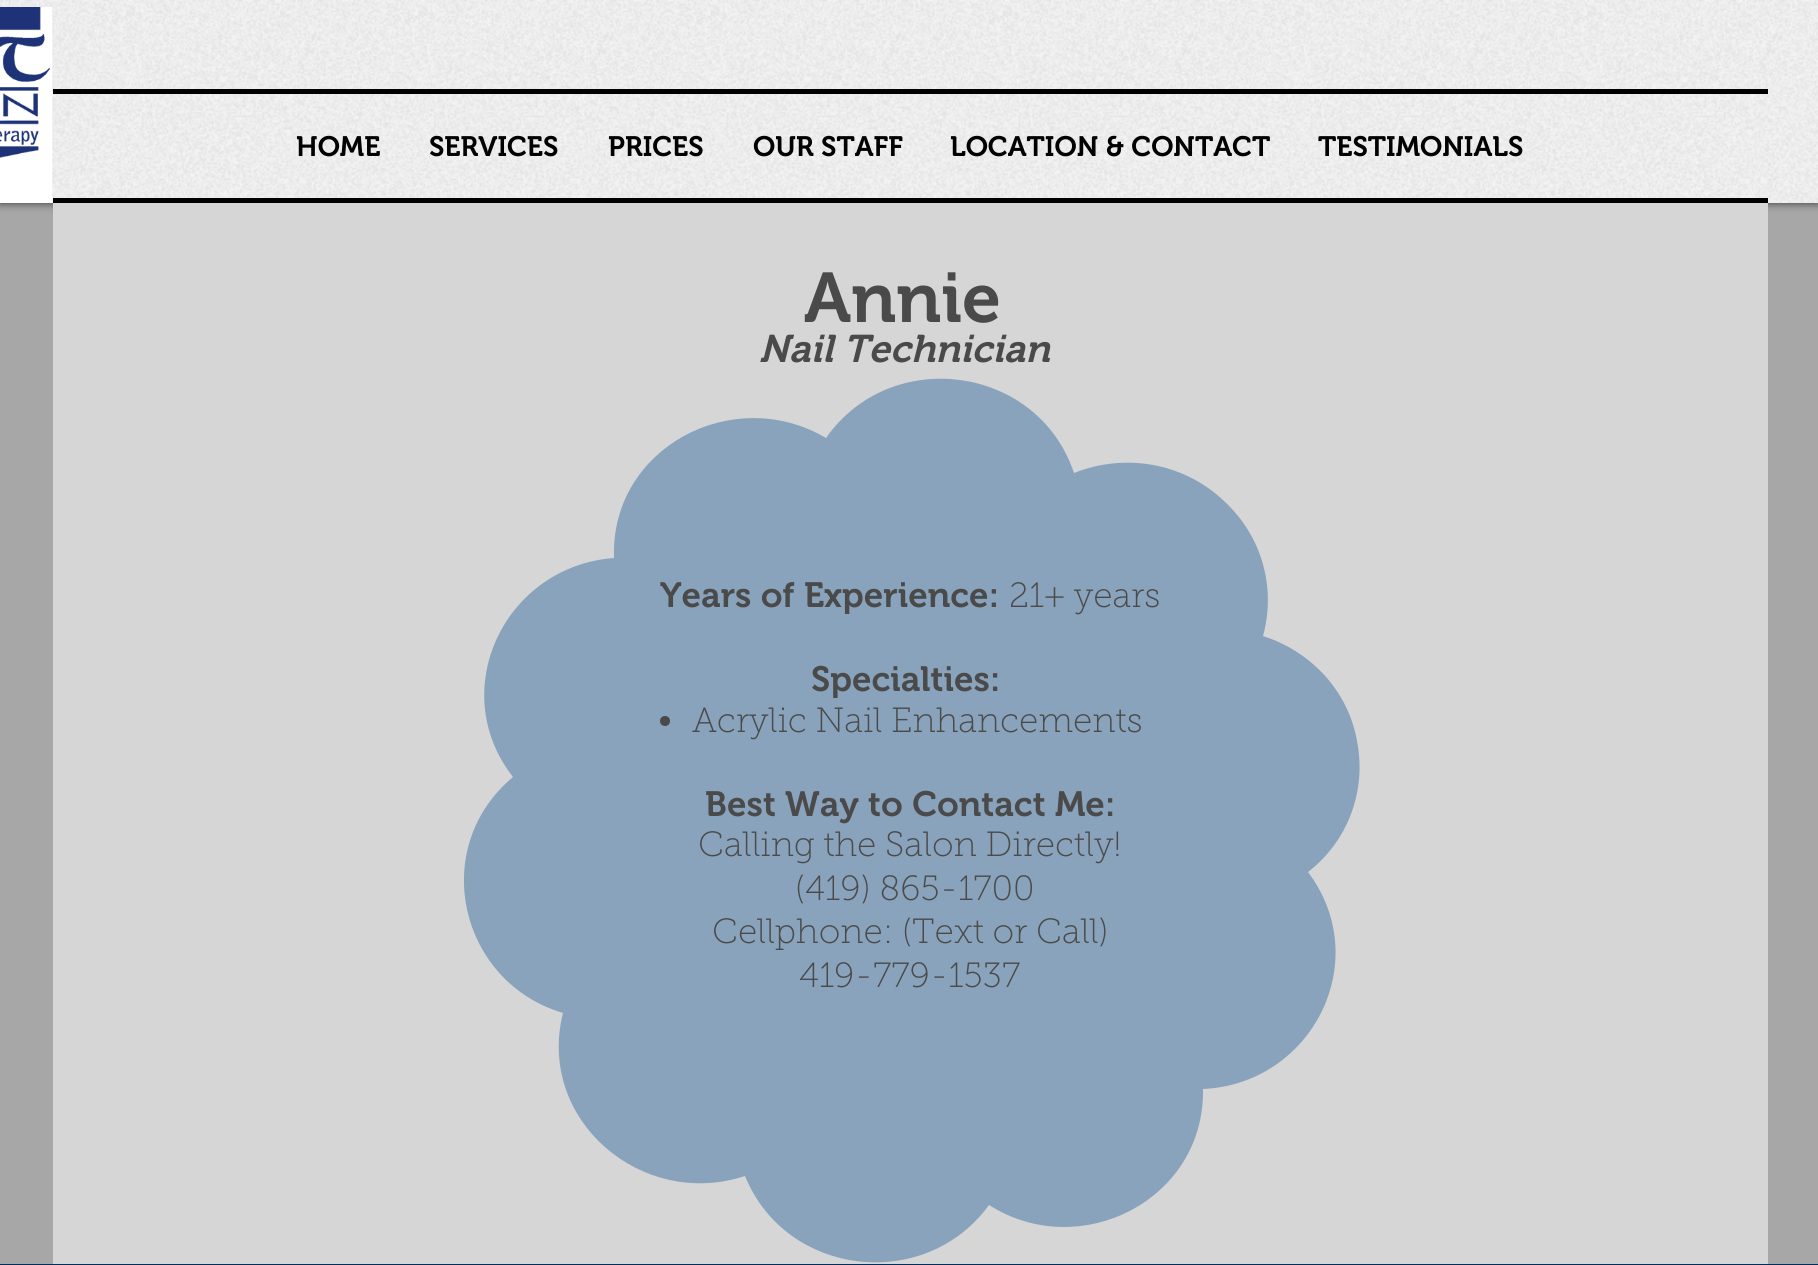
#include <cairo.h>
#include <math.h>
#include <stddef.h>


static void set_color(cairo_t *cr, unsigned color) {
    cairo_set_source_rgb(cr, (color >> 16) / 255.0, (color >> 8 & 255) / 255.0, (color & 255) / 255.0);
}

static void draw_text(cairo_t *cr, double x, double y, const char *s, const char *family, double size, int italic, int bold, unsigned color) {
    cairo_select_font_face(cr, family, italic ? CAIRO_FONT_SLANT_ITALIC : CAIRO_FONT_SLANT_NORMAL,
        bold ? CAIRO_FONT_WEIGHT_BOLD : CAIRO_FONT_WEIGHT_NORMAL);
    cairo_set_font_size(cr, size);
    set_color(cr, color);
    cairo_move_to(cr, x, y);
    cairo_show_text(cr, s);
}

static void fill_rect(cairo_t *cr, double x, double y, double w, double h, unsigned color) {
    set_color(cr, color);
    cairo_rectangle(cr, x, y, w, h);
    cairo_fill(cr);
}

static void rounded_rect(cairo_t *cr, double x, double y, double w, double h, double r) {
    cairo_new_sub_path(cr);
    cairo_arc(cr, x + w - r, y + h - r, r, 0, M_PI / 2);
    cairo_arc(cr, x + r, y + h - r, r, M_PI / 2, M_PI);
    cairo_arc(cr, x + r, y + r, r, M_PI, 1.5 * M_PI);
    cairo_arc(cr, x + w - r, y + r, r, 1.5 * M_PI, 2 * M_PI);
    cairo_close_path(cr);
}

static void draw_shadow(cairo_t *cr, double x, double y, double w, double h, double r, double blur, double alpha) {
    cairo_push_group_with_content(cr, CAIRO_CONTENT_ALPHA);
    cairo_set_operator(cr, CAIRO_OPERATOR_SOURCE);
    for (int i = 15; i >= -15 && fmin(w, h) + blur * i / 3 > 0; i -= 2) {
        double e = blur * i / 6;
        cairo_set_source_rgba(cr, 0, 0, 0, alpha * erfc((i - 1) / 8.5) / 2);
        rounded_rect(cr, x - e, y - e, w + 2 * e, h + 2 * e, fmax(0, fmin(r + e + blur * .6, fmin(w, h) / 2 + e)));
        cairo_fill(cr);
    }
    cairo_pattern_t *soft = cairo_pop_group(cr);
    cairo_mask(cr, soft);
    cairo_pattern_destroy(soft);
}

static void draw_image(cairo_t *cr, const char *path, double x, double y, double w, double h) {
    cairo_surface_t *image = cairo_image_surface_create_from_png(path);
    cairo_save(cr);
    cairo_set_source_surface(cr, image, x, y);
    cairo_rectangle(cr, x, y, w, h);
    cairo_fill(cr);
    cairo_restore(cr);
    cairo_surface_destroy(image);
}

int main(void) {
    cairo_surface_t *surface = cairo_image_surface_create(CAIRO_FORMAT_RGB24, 1818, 1265);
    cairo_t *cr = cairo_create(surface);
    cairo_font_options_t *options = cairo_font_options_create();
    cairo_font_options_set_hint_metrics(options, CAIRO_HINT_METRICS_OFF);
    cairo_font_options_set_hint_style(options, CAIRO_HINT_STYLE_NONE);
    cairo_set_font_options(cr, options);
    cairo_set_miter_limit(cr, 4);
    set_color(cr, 0xA7A7A7);
    cairo_paint(cr);
    set_color(cr, 0x000000);
    draw_shadow(cr, 0, 0, 1818, 203, 0, 4.5, 0.7);
    fill_rect(cr, 0, 0, 1818, 203, 0xF3F3F3);
    draw_image(cr, "assets/img1.png", 0, 0, 1818, 203);
    draw_image(cr, "assets/img2.png", 0, 7, 53, 196);
    fill_rect(cr, 53, 89, 1715, 5, 0x000000);
    fill_rect(cr, 53, 198, 1715, 5, 0x000000);
    draw_text(cr, 296, 156, "HOME", "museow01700 SemiBold", 28, 0, 0, 0x000000);
    draw_text(cr, 429, 156, "SERVICES", "museow01700 SemiBold", 28, 0, 0, 0x000000);
    draw_text(cr, 608, 156, "PRICES", "museow01700 SemiBold", 28, 0, 0, 0x000000);
    draw_text(cr, 753, 156, "OUR STAFF", "museow01700 SemiBold", 28, 0, 0, 0x000000);
    draw_text(cr, 950, 156, "LOCATION & CONTACT", "museow01700 SemiBold", 28, 0, 0, 0x000000);
    draw_text(cr, 1318, 156, "TESTIMONIALS", "museow01700 SemiBold", 28, 0, 0, 0x000000);
    fill_rect(cr, 53, 203, 1715, 1061, 0xD6D6D6);
    draw_text(cr, 804, 322, "Annie", "museow01700 SemiBold", 70, 0, 0, 0x4A4A4A);
    draw_text(cr, 759, 362, "Nail Technician", "museow01700 SemiBold", 38.5, 1, 0, 0x4A4A4A);
    set_color(cr, 0x88A3BB);
    cairo_set_fill_rule(cr, CAIRO_FILL_RULE_EVEN_ODD);
    cairo_new_path(cr);
    cairo_move_to(cr, 1357, 741);
    cairo_curve_to(cr, 1348, 690, 1310, 651, 1263, 636);
    cairo_curve_to(cr, 1276, 589, 1263, 537, 1224, 501);
    cairo_curve_to(cr, 1183, 462, 1124, 453, 1074, 473);
    cairo_curve_to(cr, 1038, 365, 891, 345, 826, 438);
    cairo_curve_to(cr, 733, 383, 610, 448, 614, 558);
    cairo_curve_to(cr, 505, 566, 445, 690, 513, 777);
    cairo_curve_to(cr, 428, 848, 459, 982, 563, 1013);
    cairo_curve_to(cr, 536, 1120, 642, 1210, 745, 1176);
    cairo_curve_to(cr, 786, 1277, 925, 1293, 989, 1205);
    cairo_curve_to(cr, 1080, 1263, 1205, 1200, 1203, 1089);
    cairo_curve_to(cr, 1312, 1084, 1375, 961, 1308, 872);
    cairo_curve_to(cr, 1347, 842, 1367, 792, 1357, 741);
    cairo_fill(cr);
    draw_text(cr, 660, 607, "Years of Experience:", "museow01700 SemiBold", 35, 0, 0, 0x4A4A4A);
    draw_text(cr, 1009, 607, "21+ years", "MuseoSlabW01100 Thin", 35, 0, 0, 0x4A4A4A);
    draw_text(cr, 811, 691, "Specialties:", "museow01700 SemiBold", 35, 0, 0, 0x4A4A4A);
    cairo_new_path(cr);
    cairo_arc(cr, 665, 721, 5, 0, 2 * M_PI);
    cairo_fill(cr);
    draw_text(cr, 692, 732, "Acrylic Nail Enhancements", "MuseoSlabW01100 Thin", 35, 0, 0, 0x4A4A4A);
    draw_text(cr, 705, 816, "Best Way to Contact Me:", "museow01700 SemiBold", 35, 0, 0, 0x4A4A4A);
    draw_text(cr, 698, 856, "Calling the Salon Directly!", "MuseoSlabW01100 Thin", 35, 0, 0, 0x4A4A4A);
    draw_text(cr, 795, 900, "(419) 865-1700", "MuseoSlabW01100 Thin", 35, 0, 0, 0x4A4A4A);
    draw_text(cr, 712, 943, "Cellphone: (Text or Call)", "MuseoSlabW01100 Thin", 35, 0, 0, 0x4A4A4A);
    draw_text(cr, 799, 987, "419-779-1537", "MuseoSlabW01100 Thin", 35, 0, 0, 0x4A4A4A);
    fill_rect(cr, 0, 1264, 1818, 1, 0x002E5D);
    cairo_surface_write_to_png(surface, "output.png");
    cairo_font_options_destroy(options);
    cairo_destroy(cr);
    cairo_surface_destroy(surface);
    return 0;
}
